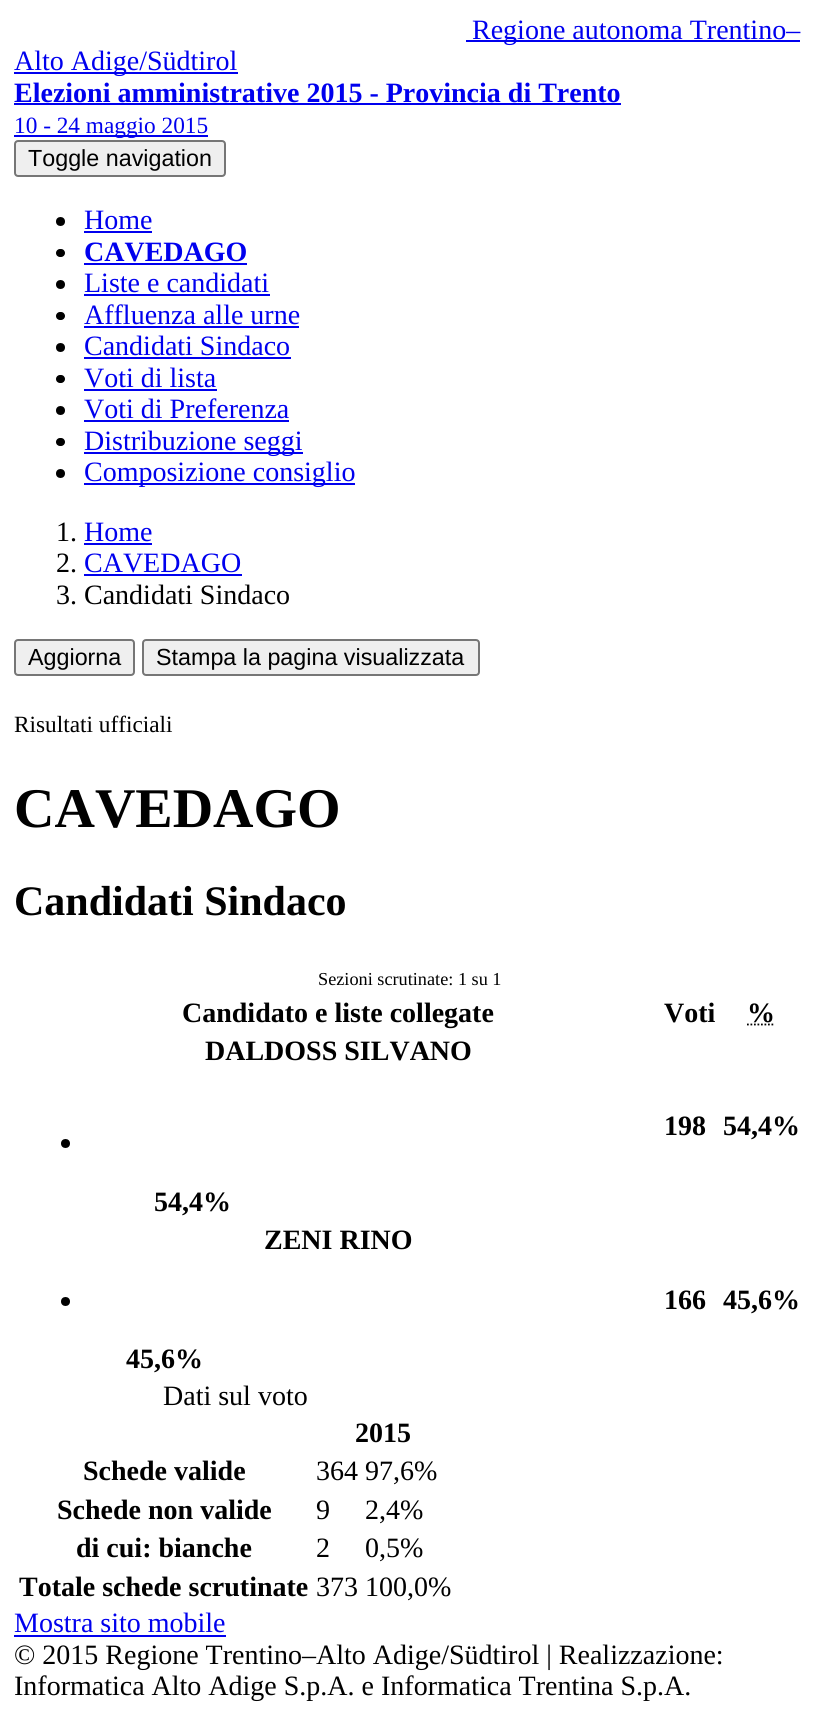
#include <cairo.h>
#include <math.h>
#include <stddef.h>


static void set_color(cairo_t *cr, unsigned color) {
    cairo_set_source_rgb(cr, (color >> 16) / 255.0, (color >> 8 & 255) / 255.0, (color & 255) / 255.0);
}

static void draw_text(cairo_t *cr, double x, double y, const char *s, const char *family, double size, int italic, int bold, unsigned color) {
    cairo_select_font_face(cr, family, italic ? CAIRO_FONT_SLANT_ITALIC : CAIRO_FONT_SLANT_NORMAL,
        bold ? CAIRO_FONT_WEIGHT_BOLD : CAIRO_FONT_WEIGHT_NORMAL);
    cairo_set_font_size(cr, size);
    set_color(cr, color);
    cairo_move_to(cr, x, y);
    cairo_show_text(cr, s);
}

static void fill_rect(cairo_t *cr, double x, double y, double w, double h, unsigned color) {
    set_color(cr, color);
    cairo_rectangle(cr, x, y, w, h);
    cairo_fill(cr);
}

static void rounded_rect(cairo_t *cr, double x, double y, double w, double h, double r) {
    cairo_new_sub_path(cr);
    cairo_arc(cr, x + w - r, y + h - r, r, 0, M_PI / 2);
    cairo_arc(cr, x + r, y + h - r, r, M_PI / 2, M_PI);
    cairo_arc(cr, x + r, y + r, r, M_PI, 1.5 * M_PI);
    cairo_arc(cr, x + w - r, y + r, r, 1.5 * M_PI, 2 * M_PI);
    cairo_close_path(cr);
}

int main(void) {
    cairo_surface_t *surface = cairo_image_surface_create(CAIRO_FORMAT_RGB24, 818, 1715);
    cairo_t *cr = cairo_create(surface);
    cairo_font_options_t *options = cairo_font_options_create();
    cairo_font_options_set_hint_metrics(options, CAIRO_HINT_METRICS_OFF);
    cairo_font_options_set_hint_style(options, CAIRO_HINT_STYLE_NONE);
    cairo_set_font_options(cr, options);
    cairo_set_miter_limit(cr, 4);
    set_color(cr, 0xFFFFFF);
    cairo_paint(cr);
    fill_rect(cr, 466, 40, 334, 2, 0x0000EE);
    draw_text(cr, 472, 39, "Regione autonoma Trentino–", "Liberation Serif", 28, 0, 0, 0x0000EE);
    fill_rect(cr, 14, 72, 224, 2, 0x0000EE);
    draw_text(cr, 14, 70, "Alto Adige/Südtirol", "Liberation Serif", 28, 0, 0, 0x0000EE);
    draw_text(cr, 14, 102, "Elezioni amministrative 2015 - Provincia di Trento", "Liberation Serif", 28, 0, 1, 0x0000EE);
    fill_rect(cr, 14, 103, 607, 2, 0x0000EE);
    fill_rect(cr, 14, 135, 194, 2, 0x0000EE);
    draw_text(cr, 14, 133, "10 - 24 maggio 2015", "Liberation Serif", 23.3, 0, 0, 0x0000EE);
    set_color(cr, 0xEFEFEF);
    rounded_rect(cr, 15, 141, 210, 35, 3);
    cairo_fill_preserve(cr);
    set_color(cr, 0x767676);
    cairo_stroke(cr);
    draw_text(cr, 28, 166, "Toggle navigation", "Liberation Sans", 23.3, 0, 0, 0x000000);
    cairo_new_path(cr);
    cairo_arc(cr, 60.5, 221.5, 4.5, 0, 2 * M_PI);
    cairo_fill(cr);
    draw_text(cr, 84, 229, "Home", "Liberation Serif", 28, 0, 0, 0x0000EE);
    fill_rect(cr, 84, 231, 68, 2, 0x0000EE);
    set_color(cr, 0x000000);
    rounded_rect(cr, 56, 249, 9, 8, 4);
    cairo_fill(cr);
    draw_text(cr, 84, 261, "CAVEDAGO", "Liberation Serif", 28, 0, 1, 0x0000EE);
    fill_rect(cr, 84, 263, 163, 2, 0x0000EE);
    set_color(cr, 0x000000);
    cairo_new_path(cr);
    cairo_arc(cr, 60.5, 284.5, 4.5, 0, 2 * M_PI);
    cairo_fill(cr);
    draw_text(cr, 84, 292, "Liste e candidati", "Liberation Serif", 28, 0, 0, 0x0000EE);
    fill_rect(cr, 84, 294, 186, 2, 0x0000EE);
    set_color(cr, 0x000000);
    rounded_rect(cr, 56, 312, 9, 8, 4);
    cairo_fill(cr);
    draw_text(cr, 84, 324, "Affluenza alle urne", "Liberation Serif", 28, 0, 0, 0x0000EE);
    fill_rect(cr, 84, 326, 215, 2, 0x0000EE);
    set_color(cr, 0x000000);
    cairo_new_path(cr);
    cairo_arc(cr, 60.5, 347.5, 4.5, 0, 2 * M_PI);
    cairo_fill(cr);
    draw_text(cr, 84, 355, "Candidati Sindaco", "Liberation Serif", 28, 0, 0, 0x0000EE);
    fill_rect(cr, 84, 357, 207, 2, 0x0000EE);
    set_color(cr, 0x000000);
    rounded_rect(cr, 56, 375, 9, 8, 4);
    cairo_fill(cr);
    draw_text(cr, 84, 387, "Voti di lista", "Liberation Serif", 28, 0, 0, 0x0000EE);
    fill_rect(cr, 84, 389, 133, 2, 0x0000EE);
    set_color(cr, 0x000000);
    cairo_new_path(cr);
    cairo_arc(cr, 60.5, 410.5, 4.5, 0, 2 * M_PI);
    cairo_fill(cr);
    draw_text(cr, 84, 418, "Voti di Preferenza", "Liberation Serif", 28, 0, 0, 0x0000EE);
    fill_rect(cr, 84, 420, 205, 2, 0x0000EE);
    set_color(cr, 0x000000);
    rounded_rect(cr, 56, 438, 9, 8, 4);
    cairo_fill(cr);
    fill_rect(cr, 84, 452, 219, 2, 0x0000EE);
    draw_text(cr, 84, 450, "Distribuzione seggi", "Liberation Serif", 28, 0, 0, 0x0000EE);
    set_color(cr, 0x000000);
    cairo_new_path(cr);
    cairo_arc(cr, 60.5, 473.5, 4.5, 0, 2 * M_PI);
    cairo_fill(cr);
    fill_rect(cr, 84, 483, 271, 2, 0x0000EE);
    draw_text(cr, 84, 481, "Composizione consiglio", "Liberation Serif", 28, 0, 0, 0x0000EE);
    draw_text(cr, 56, 541, "1.", "Liberation Serif", 28, 0, 0, 0x000000);
    draw_text(cr, 84, 541, "Home", "Liberation Serif", 28, 0, 0, 0x0000EE);
    fill_rect(cr, 84, 543, 68, 2, 0x0000EE);
    draw_text(cr, 56, 572, "2.", "Liberation Serif", 28, 0, 0, 0x000000);
    draw_text(cr, 84, 572, "CAVEDAGO", "Liberation Serif", 28, 0, 0, 0x0000EE);
    fill_rect(cr, 84, 574, 158, 2, 0x0000EE);
    draw_text(cr, 56, 604, "3. Candidati Sindaco", "Liberation Serif", 28, 0, 0, 0x000000);
    set_color(cr, 0xEFEFEF);
    rounded_rect(cr, 15, 640, 119, 35, 3);
    cairo_fill_preserve(cr);
    set_color(cr, 0x767676);
    cairo_stroke(cr);
    draw_text(cr, 28, 665, "Aggiorna", "Liberation Sans", 23.3, 0, 0, 0x000000);
    set_color(cr, 0xEFEFEF);
    rounded_rect(cr, 143, 640, 336, 35, 3);
    cairo_fill_preserve(cr);
    set_color(cr, 0x767676);
    cairo_stroke(cr);
    draw_text(cr, 156, 665, "Stampa la pagina visualizzata", "Liberation Sans", 23.3, 0, 0, 0x000000);
    draw_text(cr, 14, 732, "Risultati ufficiali", "Liberation Serif", 23.3, 0, 0, 0x000000);
    draw_text(cr, 14, 827, "CAVEDAGO", "Liberation Serif", 56, 0, 1, 0x000000);
    draw_text(cr, 14, 915, "Candidati Sindaco", "Liberation Serif", 42, 0, 1, 0x000000);
    draw_text(cr, 318, 985, "Sezioni scrutinate: 1 su 1", "Liberation Serif", 18.25, 0, 0, 0x000000);
    draw_text(cr, 182, 1022, "Candidato e liste collegate", "Liberation Serif", 28, 0, 1, 0x000000);
    draw_text(cr, 664, 1022, "Voti", "Liberation Serif", 28, 0, 1, 0x000000);
    draw_text(cr, 747, 1022, "%", "Liberation Serif", 28, 0, 1, 0x000000);
    cairo_new_path(cr);
    cairo_move_to(cr, 747, 1024.5);
    cairo_line_to(cr, 775, 1024.5);
    cairo_set_line_width(cr, 1.8);
    cairo_set_dash(cr, (double[]){1.75, 1.75}, 2, 0);
    cairo_stroke(cr);
    draw_text(cr, 205, 1060, "DALDOSS SILVANO", "Liberation Serif", 28, 0, 1, 0x000000);
    cairo_new_path(cr);
    cairo_arc(cr, 65.5, 1143.5, 4.5, 0, 2 * M_PI);
    cairo_fill(cr);
    draw_text(cr, 154, 1211, "54,4%", "Liberation Serif", 28, 0, 1, 0x000000);
    draw_text(cr, 664, 1135, "198", "Liberation Serif", 28, 0, 1, 0x000000);
    draw_text(cr, 723, 1135, "54,4%", "Liberation Serif", 28, 0, 1, 0x000000);
    draw_text(cr, 264, 1249, "ZENI RINO", "Liberation Serif", 28, 0, 1, 0x000000);
    cairo_new_path(cr);
    cairo_arc(cr, 65.5, 1301.5, 4.5, 0, 2 * M_PI);
    cairo_fill(cr);
    draw_text(cr, 126, 1368, "45,6%", "Liberation Serif", 28, 0, 1, 0x000000);
    draw_text(cr, 664, 1309, "166", "Liberation Serif", 28, 0, 1, 0x000000);
    draw_text(cr, 723, 1309, "45,6%", "Liberation Serif", 28, 0, 1, 0x000000);
    draw_text(cr, 163, 1405, "Dati sul voto", "Liberation Serif", 28, 0, 0, 0x000000);
    draw_text(cr, 355, 1442, "2015", "Liberation Serif", 28, 0, 1, 0x000000);
    draw_text(cr, 83, 1480, "Schede valide", "Liberation Serif", 28, 0, 1, 0x000000);
    draw_text(cr, 316, 1480, "364 97,6%", "Liberation Serif", 28, 0, 0, 0x000000);
    draw_text(cr, 57, 1519, "Schede non valide", "Liberation Serif", 28, 0, 1, 0x000000);
    draw_text(cr, 316, 1519, "9", "Liberation Serif", 28, 0, 0, 0x000000);
    draw_text(cr, 365, 1519, "2,4%", "Liberation Serif", 28, 0, 0, 0x000000);
    draw_text(cr, 76, 1557, "di cui: bianche", "Liberation Serif", 28, 0, 1, 0x000000);
    draw_text(cr, 316, 1557, "2", "Liberation Serif", 28, 0, 0, 0x000000);
    draw_text(cr, 365, 1557, "0,5%", "Liberation Serif", 28, 0, 0, 0x000000);
    draw_text(cr, 19, 1596, "Totale schede scrutinate", "Liberation Serif", 28, 0, 1, 0x000000);
    draw_text(cr, 316, 1596, "373 100,0%", "Liberation Serif", 28, 0, 0, 0x000000);
    draw_text(cr, 14, 1632, "Mostra sito mobile", "Liberation Serif", 28, 0, 0, 0x0000EE);
    fill_rect(cr, 14, 1635, 212, 2, 0x0000EE);
    draw_text(cr, 14, 1664, "© 2015 Regione Trentino–Alto Adige/Südtirol | Realizzazione:", "Liberation Serif", 28, 0, 0, 0x000000);
    draw_text(cr, 14, 1695, "Informatica Alto Adige S.p.A. e Informatica Trentina S.p.A.", "Liberation Serif", 28, 0, 0, 0x000000);
    cairo_surface_write_to_png(surface, "output.png");
    cairo_font_options_destroy(options);
    cairo_destroy(cr);
    cairo_surface_destroy(surface);
    return 0;
}
